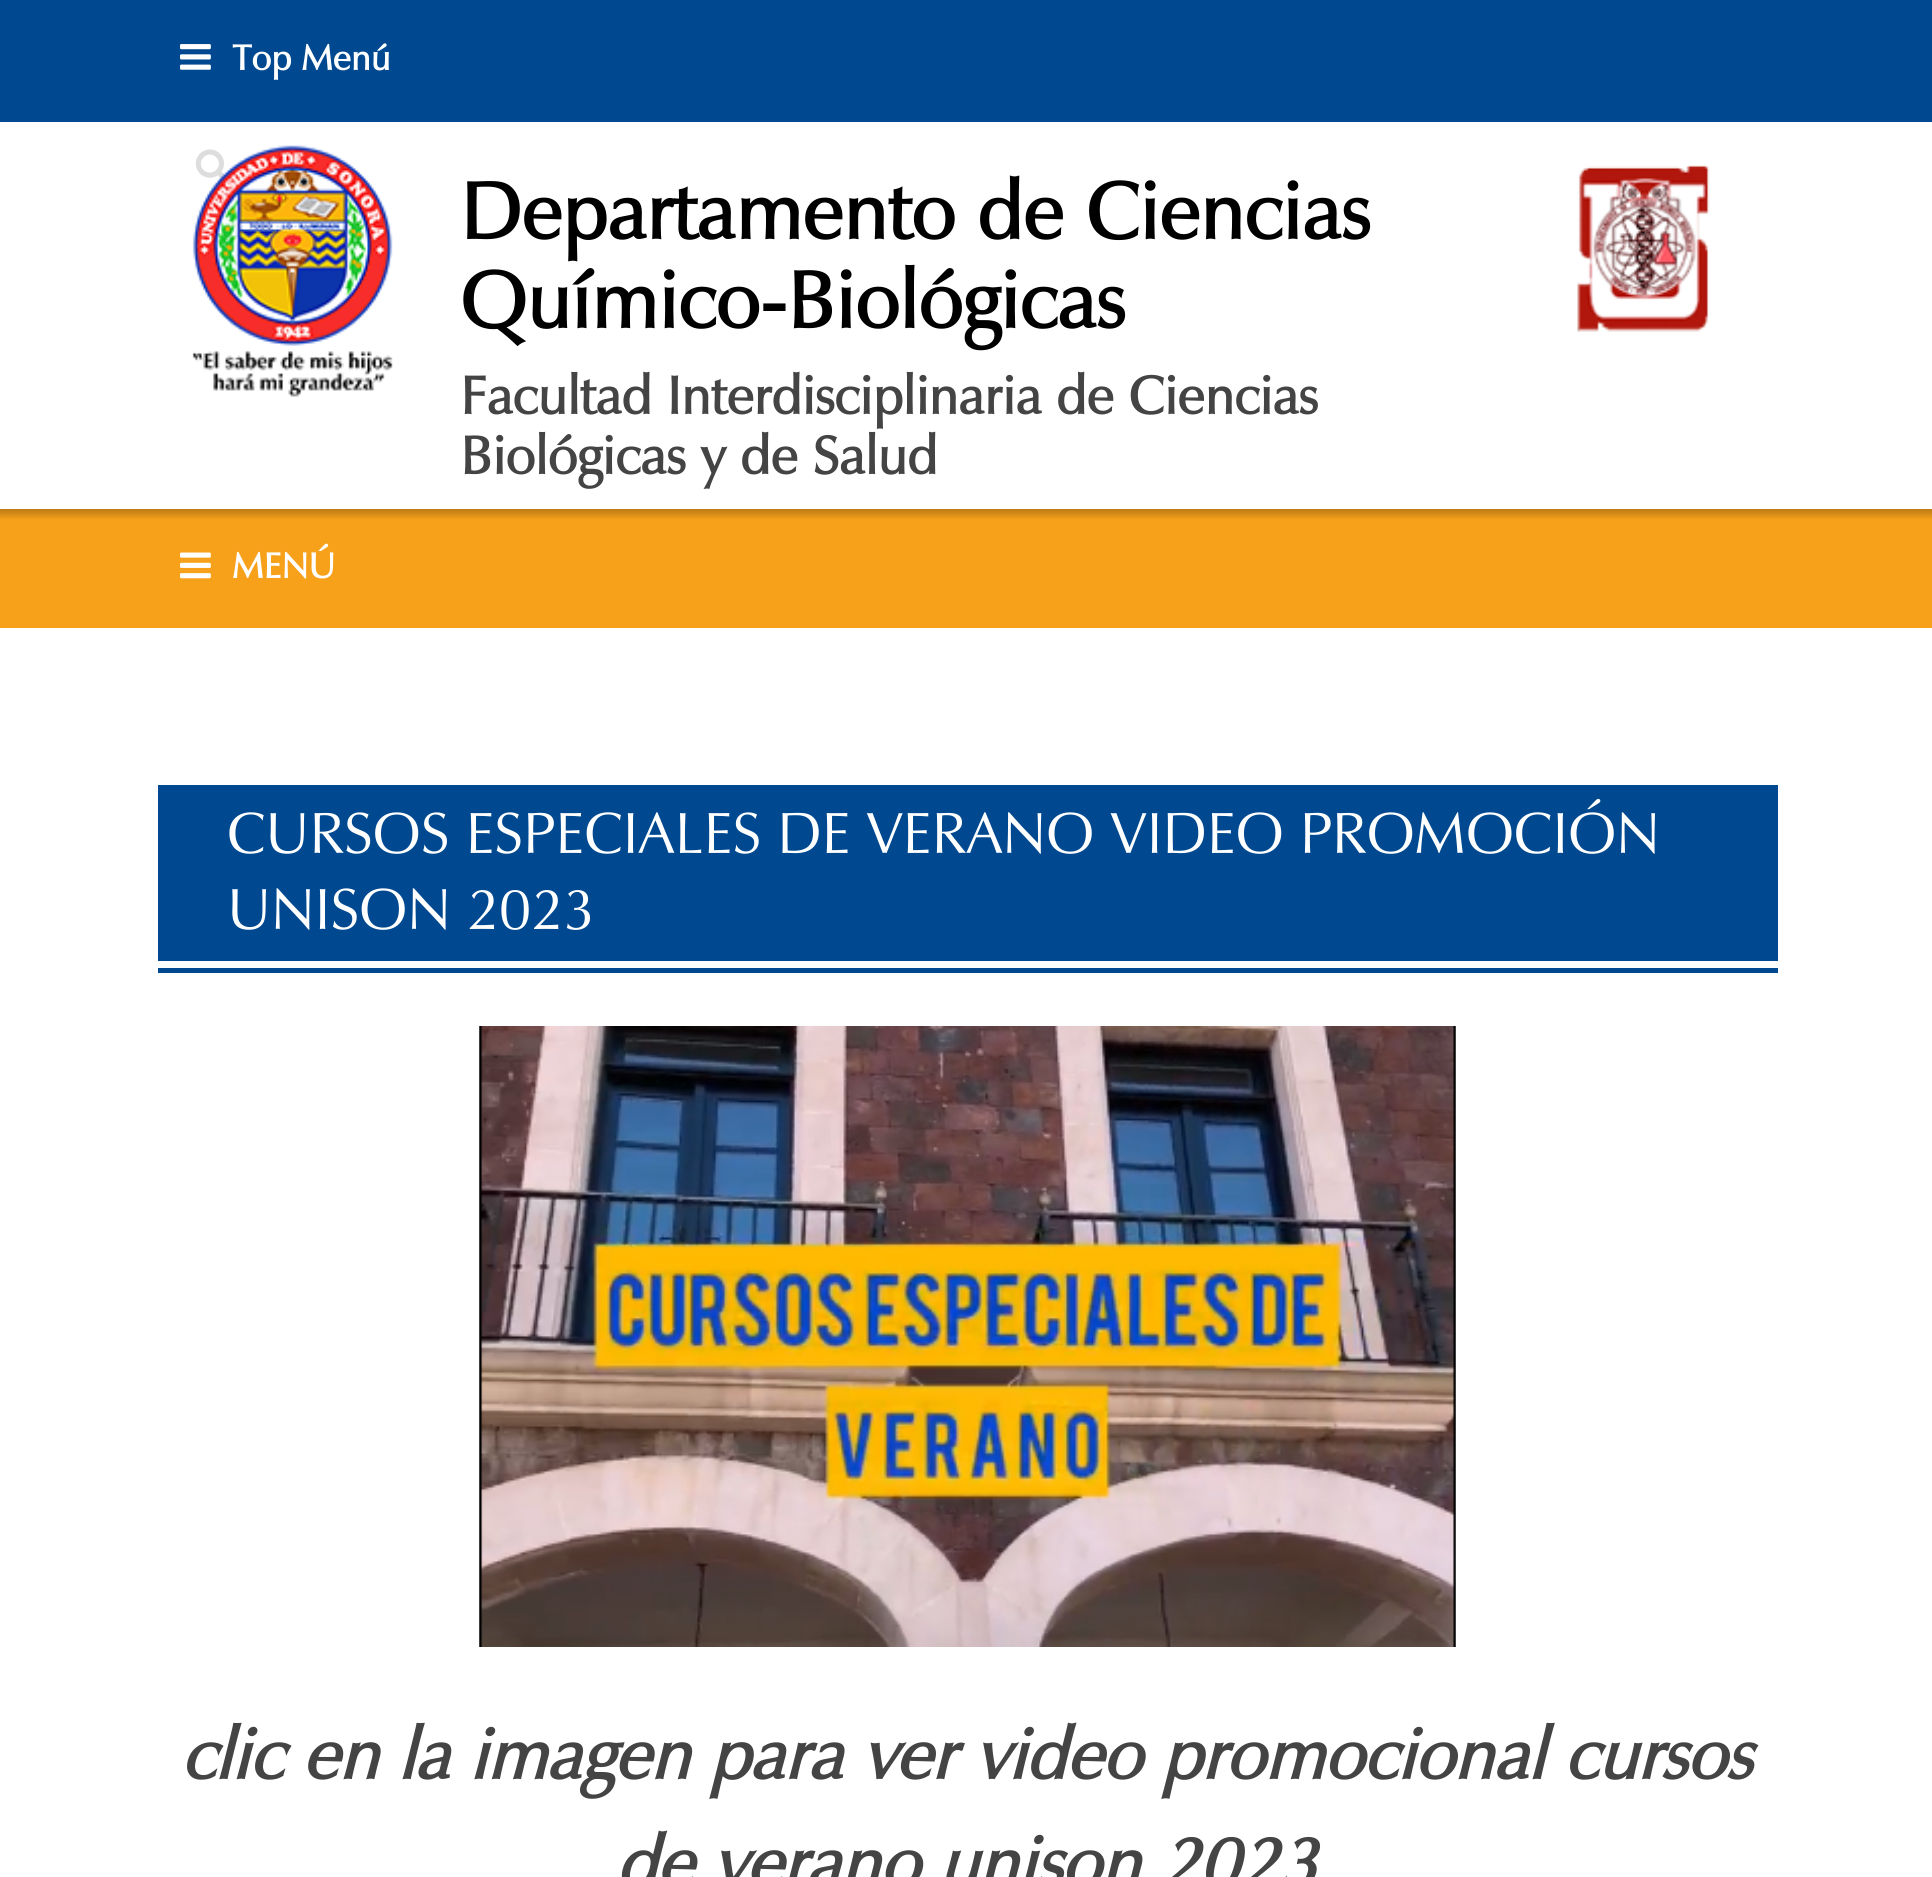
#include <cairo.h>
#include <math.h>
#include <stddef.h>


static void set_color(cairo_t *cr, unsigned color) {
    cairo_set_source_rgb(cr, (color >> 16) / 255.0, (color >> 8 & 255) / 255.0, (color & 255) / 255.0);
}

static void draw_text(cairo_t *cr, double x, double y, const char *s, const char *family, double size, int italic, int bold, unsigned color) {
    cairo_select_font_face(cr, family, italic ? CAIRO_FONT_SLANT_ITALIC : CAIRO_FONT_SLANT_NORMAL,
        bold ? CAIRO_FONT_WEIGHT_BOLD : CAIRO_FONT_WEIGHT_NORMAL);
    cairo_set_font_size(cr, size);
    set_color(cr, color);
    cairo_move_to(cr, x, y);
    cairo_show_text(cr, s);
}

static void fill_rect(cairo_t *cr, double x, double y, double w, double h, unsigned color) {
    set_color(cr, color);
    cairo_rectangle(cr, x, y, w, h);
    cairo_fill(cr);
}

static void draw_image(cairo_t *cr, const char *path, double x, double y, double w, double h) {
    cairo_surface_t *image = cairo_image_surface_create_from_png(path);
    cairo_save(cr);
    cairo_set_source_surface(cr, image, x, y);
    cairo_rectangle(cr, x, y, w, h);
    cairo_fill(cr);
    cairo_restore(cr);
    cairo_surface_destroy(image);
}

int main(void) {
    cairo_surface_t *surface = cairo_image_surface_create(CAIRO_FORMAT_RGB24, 1932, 1877);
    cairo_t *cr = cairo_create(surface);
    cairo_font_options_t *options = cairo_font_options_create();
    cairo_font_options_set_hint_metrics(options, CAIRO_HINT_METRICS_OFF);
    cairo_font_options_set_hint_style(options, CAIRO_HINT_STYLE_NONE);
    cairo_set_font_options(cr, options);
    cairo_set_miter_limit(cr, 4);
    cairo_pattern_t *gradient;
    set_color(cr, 0xFFFFFF);
    cairo_paint(cr);
    fill_rect(cr, 0, 0, 1932, 122, 0x004990);
    draw_image(cr, "assets/img1.png", 180, 44, 31, 26);
    draw_text(cr, 232, 70, "Top Menú", "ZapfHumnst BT", 36, 0, 1, 0xFFFFFF);
    draw_image(cr, "assets/img2.png", 195, 149, 32, 32);
    draw_image(cr, "assets/img3.png", 192, 145, 201, 252);
    draw_text(cr, 460, 239, "Departamento de Ciencias", "ZapfHumnst BT", 81, 0, 1, 0x000000);
    draw_text(cr, 460, 328, "Químico-Biológicas", "ZapfHumnst BT", 81, 0, 1, 0x000000);
    draw_text(cr, 460, 414, "Facultad Interdisciplinaria de Ciencias", "ZapfHumnst BT", 54, 0, 1, 0x444444);
    draw_text(cr, 460, 474, "Biológicas y de Salud", "ZapfHumnst BT", 54, 0, 1, 0x444444);
    draw_image(cr, "assets/img4.png", 1577, 165, 133, 167);
    gradient = cairo_pattern_create_linear(966, 508, 966, 628);
    cairo_pattern_add_color_stop_rgba(gradient, 0, 0.71, 0.467, 0.078, 1);
    cairo_pattern_add_color_stop_rgba(gradient, 0.01, 0.737, 0.482, 0.082, 1);
    cairo_pattern_add_color_stop_rgba(gradient, 0.1, 0.969, 0.631, 0.102, 1);
    cairo_set_source(cr, gradient);
    cairo_pattern_destroy(gradient);
    cairo_rectangle(cr, 0, 509, 1932, 119);
    cairo_fill(cr);
    draw_image(cr, "assets/img5.png", 180, 552, 31, 27);
    draw_text(cr, 232, 578, "MENÚ", "ZapfHumnst BT", 36, 0, 1, 0xFFFFFF);
    fill_rect(cr, 158, 968, 1620, 5, 0x004990);
    fill_rect(cr, 158, 785, 1620, 176, 0x004990);
    draw_text(cr, 227, 853, "CURSOS ESPECIALES DE VERANO VIDEO PROMOCIÓN", "ZapfHumnst BT", 58.5, 0, 0, 0xFFFFFF);
    draw_text(cr, 227, 929, "UNISON 2023", "ZapfHumnst BT", 58.5, 0, 0, 0xFFFFFF);
    draw_image(cr, "assets/img6.png", 479, 1026, 977, 621);
    draw_text(cr, 181, 1779, "clic en la imagen para ver video promocional cursos", "ZapfHumnst BT", 72, 1, 1, 0x444444);
    draw_text(cr, 616, 1887, "de verano unison 2023", "ZapfHumnst BT", 72, 1, 1, 0x444444);
    cairo_surface_write_to_png(surface, "output.png");
    cairo_font_options_destroy(options);
    cairo_destroy(cr);
    cairo_surface_destroy(surface);
    return 0;
}
